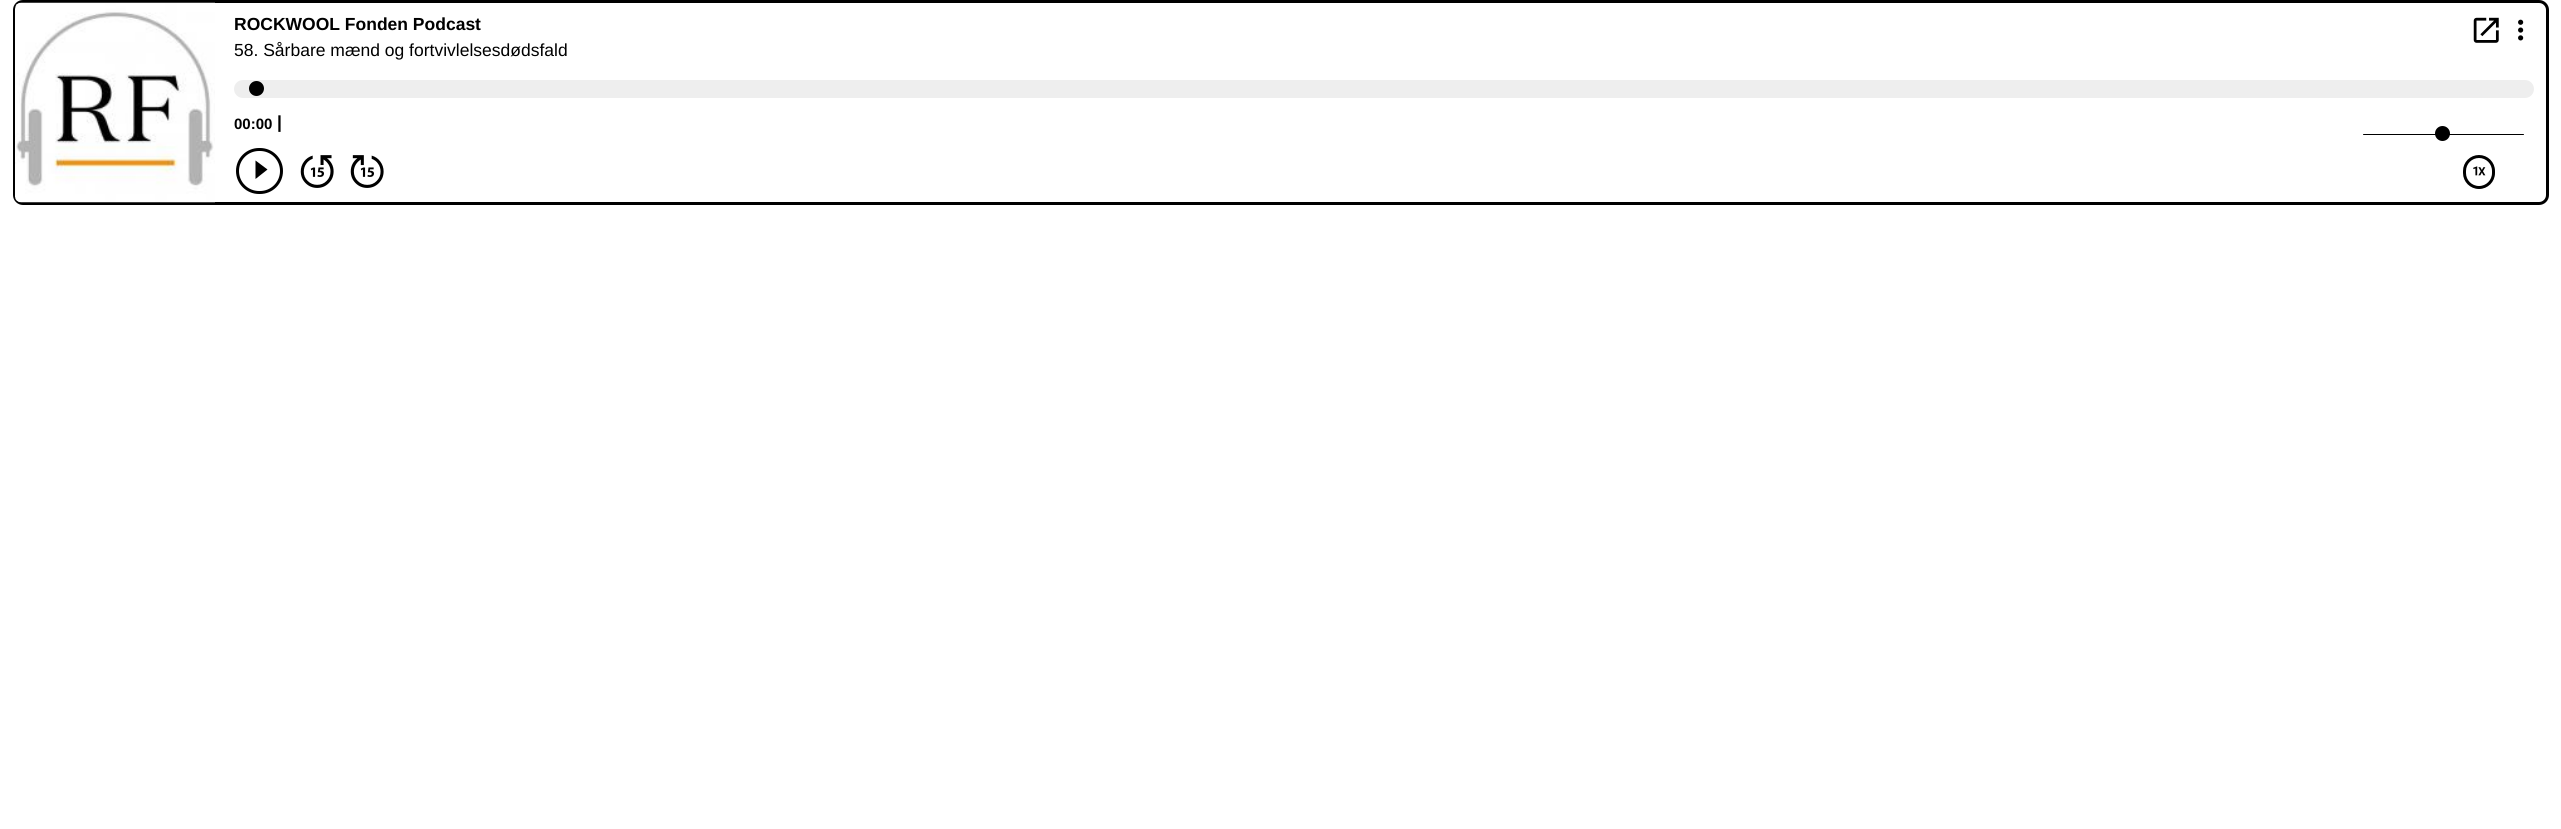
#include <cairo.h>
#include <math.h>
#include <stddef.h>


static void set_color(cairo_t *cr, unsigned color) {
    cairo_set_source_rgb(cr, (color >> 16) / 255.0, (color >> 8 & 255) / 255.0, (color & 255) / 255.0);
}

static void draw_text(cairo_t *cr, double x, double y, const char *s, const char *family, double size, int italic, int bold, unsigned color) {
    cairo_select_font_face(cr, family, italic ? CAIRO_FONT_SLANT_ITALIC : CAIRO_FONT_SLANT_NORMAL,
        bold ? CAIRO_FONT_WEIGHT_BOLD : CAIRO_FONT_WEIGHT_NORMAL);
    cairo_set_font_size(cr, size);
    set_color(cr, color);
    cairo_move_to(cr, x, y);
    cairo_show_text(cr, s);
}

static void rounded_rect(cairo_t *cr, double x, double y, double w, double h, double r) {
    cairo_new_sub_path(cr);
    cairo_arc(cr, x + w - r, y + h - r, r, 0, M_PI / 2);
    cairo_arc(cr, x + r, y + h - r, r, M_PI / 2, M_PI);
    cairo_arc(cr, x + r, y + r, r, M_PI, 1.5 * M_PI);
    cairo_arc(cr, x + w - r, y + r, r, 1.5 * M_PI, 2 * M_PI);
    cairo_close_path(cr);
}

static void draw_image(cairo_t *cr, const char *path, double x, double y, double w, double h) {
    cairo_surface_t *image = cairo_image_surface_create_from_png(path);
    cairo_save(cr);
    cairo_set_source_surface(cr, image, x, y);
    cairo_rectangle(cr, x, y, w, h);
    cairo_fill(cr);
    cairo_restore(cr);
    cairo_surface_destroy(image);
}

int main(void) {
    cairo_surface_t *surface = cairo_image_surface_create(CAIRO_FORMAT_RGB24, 2561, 829);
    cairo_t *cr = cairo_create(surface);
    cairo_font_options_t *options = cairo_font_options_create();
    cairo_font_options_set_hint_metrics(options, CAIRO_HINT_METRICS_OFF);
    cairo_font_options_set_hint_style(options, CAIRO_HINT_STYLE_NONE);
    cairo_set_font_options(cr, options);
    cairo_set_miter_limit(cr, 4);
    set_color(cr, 0xFFFFFF);
    cairo_paint(cr);
    rounded_rect(cr, 14.5, 1.5, 2533, 202, 8.5);
    set_color(cr, 0x000000);
    cairo_set_line_width(cr, 3);
    cairo_stroke(cr);
    draw_image(cr, "assets/img1.png", 15, 2, 200, 201);
    draw_text(cr, 234, 30, "ROCKWOOL Fonden Podcast", "Liberation Sans", 17.5, 0, 1, 0x000000);
    draw_image(cr, "assets/img2.png", 2473, 17, 26, 26);
    draw_image(cr, "assets/img3.png", 2518, 19, 6, 22);
    draw_text(cr, 234, 56, "58. Sårbare mænd og fortvivlelsesdødsfald", "Liberation Sans", 17.5, 0, 0, 0x000000);
    set_color(cr, 0xEEEEEE);
    rounded_rect(cr, 234, 80, 2300, 18, 9);
    cairo_fill(cr);
    set_color(cr, 0x000000);
    cairo_arc(cr, 256.5, 88.5, 7.5, 0, 2 * M_PI);
    cairo_fill(cr);
    draw_text(cr, 234, 129, "00:00", "Liberation Sans", 15, 0, 1, 0x000000);
    draw_text(cr, 277, 128, "|", "Liberation Sans", 17.5, 0, 1, 0x000000);
    rounded_rect(cr, 2363, 134, 161, 1, 0.5);
    cairo_fill(cr);
    cairo_arc(cr, 2442.5, 133.5, 7.5, 0, 2 * M_PI);
    cairo_fill(cr);
    rounded_rect(cr, 237.5, 149.5, 44, 43, 21.5);
    cairo_stroke(cr);
    cairo_new_path(cr);
    cairo_move_to(cr, 255.5, 179);
    cairo_line_to(cr, 255.5, 160.5);
    cairo_line_to(cr, 267.5, 169.5);
    cairo_close_path(cr);
    cairo_fill(cr);
    draw_image(cr, "assets/img4.png", 300, 155, 34, 33);
    draw_image(cr, "assets/img5.png", 350, 155, 34, 33);
    rounded_rect(cr, 2464.5, 156.5, 29, 31, 14.5);
    cairo_stroke(cr);
    draw_image(cr, "assets/img6.png", 2473, 166, 13, 10);
    cairo_surface_write_to_png(surface, "output.png");
    cairo_font_options_destroy(options);
    cairo_destroy(cr);
    cairo_surface_destroy(surface);
    return 0;
}
